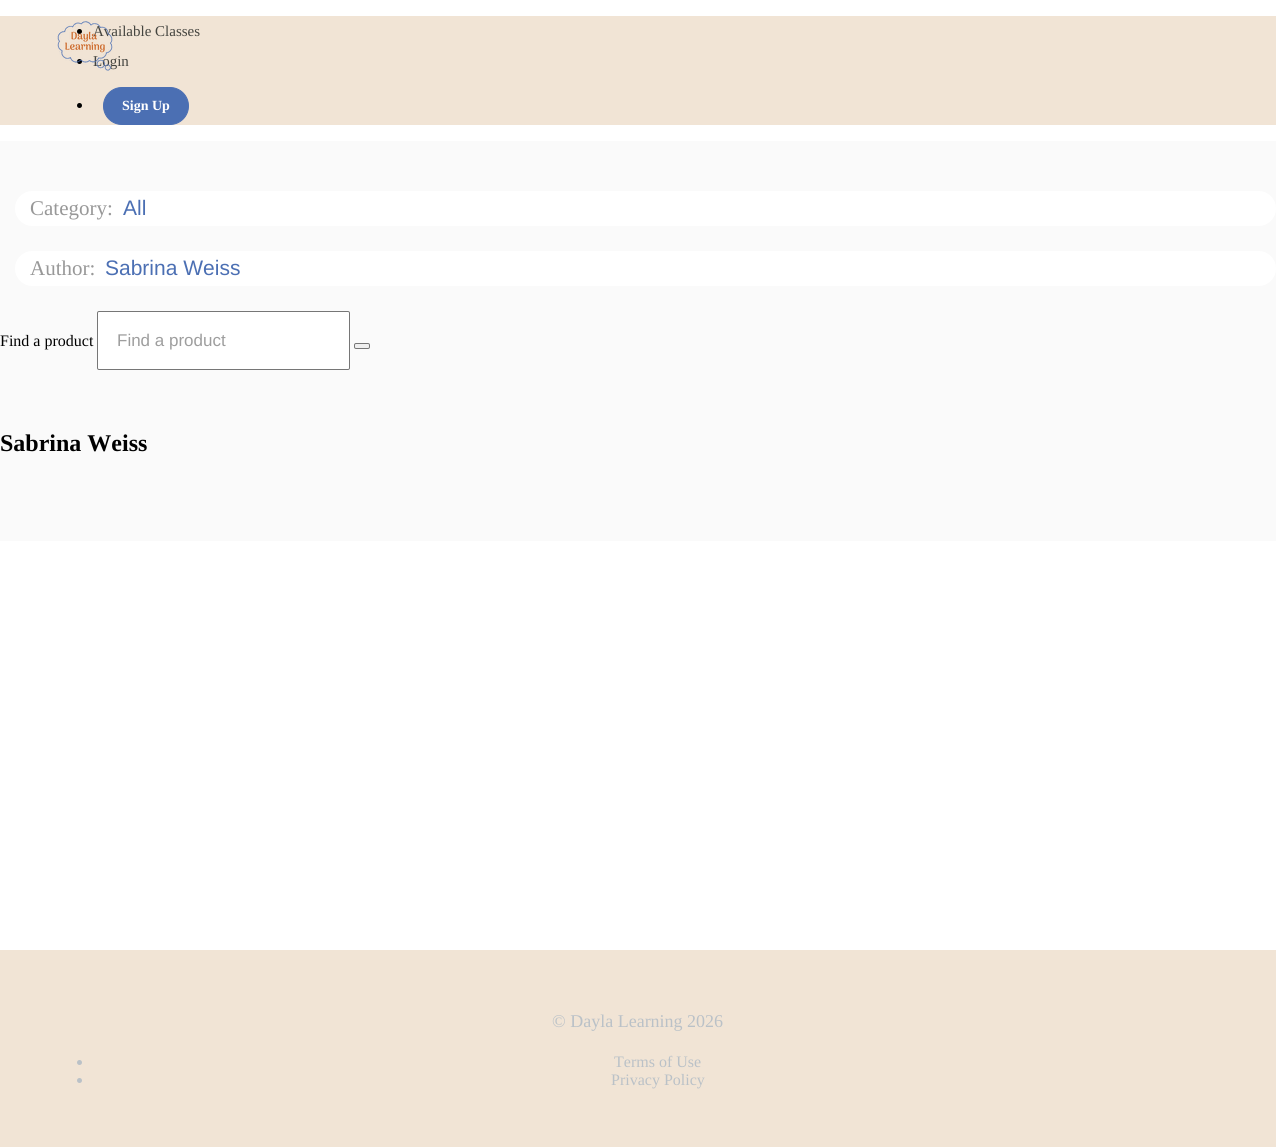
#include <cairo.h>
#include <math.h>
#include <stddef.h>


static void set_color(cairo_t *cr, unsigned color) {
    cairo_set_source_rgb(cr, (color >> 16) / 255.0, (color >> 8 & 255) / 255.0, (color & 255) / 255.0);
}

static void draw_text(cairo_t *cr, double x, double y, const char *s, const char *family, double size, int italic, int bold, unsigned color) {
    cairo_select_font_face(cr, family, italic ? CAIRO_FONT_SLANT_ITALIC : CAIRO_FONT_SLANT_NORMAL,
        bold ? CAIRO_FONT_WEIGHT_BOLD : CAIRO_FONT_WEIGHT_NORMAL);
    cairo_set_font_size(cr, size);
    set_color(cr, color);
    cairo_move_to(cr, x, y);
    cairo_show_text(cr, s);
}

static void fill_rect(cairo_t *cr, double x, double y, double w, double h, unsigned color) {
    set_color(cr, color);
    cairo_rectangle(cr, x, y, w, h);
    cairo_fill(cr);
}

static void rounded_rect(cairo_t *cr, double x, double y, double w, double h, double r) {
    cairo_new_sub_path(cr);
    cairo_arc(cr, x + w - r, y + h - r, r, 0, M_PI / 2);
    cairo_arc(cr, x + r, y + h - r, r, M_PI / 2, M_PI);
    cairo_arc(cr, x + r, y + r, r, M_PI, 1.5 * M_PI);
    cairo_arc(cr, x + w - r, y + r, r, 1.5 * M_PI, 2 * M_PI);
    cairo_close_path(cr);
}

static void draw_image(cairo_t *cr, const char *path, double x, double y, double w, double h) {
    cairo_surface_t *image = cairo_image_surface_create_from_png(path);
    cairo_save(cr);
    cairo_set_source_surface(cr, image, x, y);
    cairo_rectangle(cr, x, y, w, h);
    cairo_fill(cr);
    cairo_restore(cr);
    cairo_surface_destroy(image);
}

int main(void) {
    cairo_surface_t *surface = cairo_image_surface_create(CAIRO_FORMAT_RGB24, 1276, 1147);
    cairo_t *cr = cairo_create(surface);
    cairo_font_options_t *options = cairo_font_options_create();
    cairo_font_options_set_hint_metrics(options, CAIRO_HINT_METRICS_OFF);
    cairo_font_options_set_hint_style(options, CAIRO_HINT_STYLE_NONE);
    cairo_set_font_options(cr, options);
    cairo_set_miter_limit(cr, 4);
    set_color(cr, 0xFFFFFF);
    cairo_paint(cr);
    fill_rect(cr, 0, 16, 1276, 109, 0xF1E4D5);
    set_color(cr, 0x000000);
    cairo_arc(cr, 79.5, 31.5, 2.5, 0, 2 * M_PI);
    cairo_fill(cr);
    draw_text(cr, 93, 36, "Available Classes", "Liberation Serif", 15, 0, 0, 0x44443F);
    set_color(cr, 0x000000);
    cairo_new_path(cr);
    cairo_arc(cr, 79.5, 61.5, 2.5, 0, 2 * M_PI);
    cairo_fill(cr);
    draw_text(cr, 93, 66, "Login", "Liberation Serif", 15, 0, 0, 0x44443F);
    draw_image(cr, "assets/img1.png", 57, 21, 56, 50);
    set_color(cr, 0x000000);
    cairo_arc(cr, 79.5, 105.5, 2.5, 0, 2 * M_PI);
    cairo_fill(cr);
    set_color(cr, 0x4B6FB3);
    rounded_rect(cr, 103.5, 87.5, 85, 37, 18.5);
    cairo_fill_preserve(cr);
    cairo_set_line_width(cr, 1);
    cairo_stroke(cr);
    draw_text(cr, 122, 110, "Sign Up", "Liberation Serif", 14, 0, 1, 0xFFFFFF);
    fill_rect(cr, 0, 141, 1276, 400, 0xFAFAFA);
    set_color(cr, 0xFFFFFF);
    rounded_rect(cr, 15, 191, 1261, 35, 17.5);
    cairo_fill(cr);
    draw_text(cr, 30, 215, "Category:", "Liberation Serif", 21, 0, 0, 0x989898);
    draw_text(cr, 123, 215, "All", "Liberation Sans", 21, 0, 0, 0x4B6FB3);
    set_color(cr, 0xFFFFFF);
    rounded_rect(cr, 15, 251, 1261, 35, 17.5);
    cairo_fill(cr);
    draw_text(cr, 30, 275, "Author:", "Liberation Serif", 21, 0, 0, 0x989898);
    draw_text(cr, 105, 275, "Sabrina Weiss", "Liberation Sans", 21, 0, 0, 0x4B6FB3);
    draw_text(cr, 0, 346, "Find a product", "Liberation Serif", 16, 0, 0, 0x000000);
    set_color(cr, 0xFFFFFF);
    rounded_rect(cr, 97.5, 311.5, 252, 58, 1.5);
    cairo_fill_preserve(cr);
    set_color(cr, 0x767676);
    cairo_stroke(cr);
    draw_text(cr, 117, 346, "Find a product", "Liberation Sans", 17, 0, 0, 0x9E9E9E);
    set_color(cr, 0xEFEFEF);
    rounded_rect(cr, 354.5, 343.5, 15, 5, 1.5);
    cairo_fill_preserve(cr);
    set_color(cr, 0x767676);
    cairo_stroke(cr);
    draw_text(cr, 0, 451, "Sabrina Weiss", "Liberation Serif", 24, 0, 1, 0x000000);
    fill_rect(cr, 0, 950, 1276, 197, 0xF1E4D5);
    draw_text(cr, 552, 1027, "© Dayla Learning 2026", "Liberation Serif", 18, 0, 0, 0xBAC1C7);
    cairo_new_path(cr);
    cairo_arc(cr, 79.5, 1062.5, 2.5, 0, 2 * M_PI);
    cairo_fill(cr);
    draw_text(cr, 614, 1067, "Terms of Use", "Liberation Serif", 16, 0, 0, 0xBAC1C7);
    cairo_new_path(cr);
    cairo_arc(cr, 79.5, 1080.5, 2.5, 0, 2 * M_PI);
    cairo_fill(cr);
    draw_text(cr, 611, 1085, "Privacy Policy", "Liberation Serif", 16, 0, 0, 0xBAC1C7);
    cairo_surface_write_to_png(surface, "output.png");
    cairo_font_options_destroy(options);
    cairo_destroy(cr);
    cairo_surface_destroy(surface);
    return 0;
}
